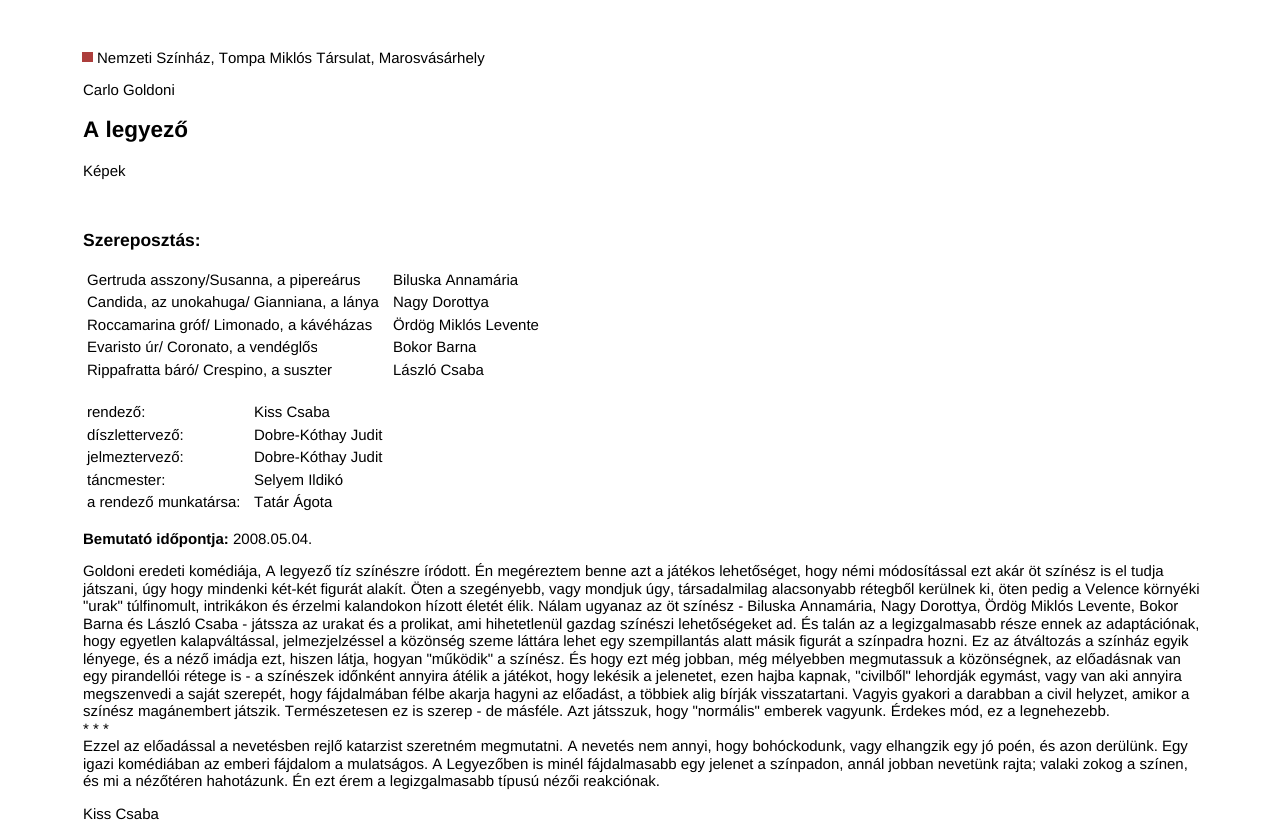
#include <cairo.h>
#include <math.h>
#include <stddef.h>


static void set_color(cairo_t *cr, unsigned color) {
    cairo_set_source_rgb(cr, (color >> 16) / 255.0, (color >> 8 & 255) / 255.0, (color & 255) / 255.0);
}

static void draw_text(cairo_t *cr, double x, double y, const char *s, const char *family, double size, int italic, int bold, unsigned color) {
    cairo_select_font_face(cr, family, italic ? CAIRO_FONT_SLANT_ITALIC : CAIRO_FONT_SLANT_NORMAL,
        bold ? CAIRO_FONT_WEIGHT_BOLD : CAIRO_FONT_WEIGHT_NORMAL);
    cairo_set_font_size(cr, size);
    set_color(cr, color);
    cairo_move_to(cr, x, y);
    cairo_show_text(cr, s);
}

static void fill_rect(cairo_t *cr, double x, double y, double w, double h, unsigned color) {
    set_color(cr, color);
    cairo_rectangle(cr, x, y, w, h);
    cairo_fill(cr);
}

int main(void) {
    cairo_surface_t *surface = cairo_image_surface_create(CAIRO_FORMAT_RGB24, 1282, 839);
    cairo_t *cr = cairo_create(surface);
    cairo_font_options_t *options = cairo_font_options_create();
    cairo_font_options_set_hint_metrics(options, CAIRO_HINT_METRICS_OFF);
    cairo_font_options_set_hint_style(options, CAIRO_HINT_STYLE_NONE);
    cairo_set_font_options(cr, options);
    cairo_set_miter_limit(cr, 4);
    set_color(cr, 0xFFFFFF);
    cairo_paint(cr);
    fill_rect(cr, 82, 52, 11, 10, 0xAC3E3C);
    draw_text(cr, 97, 63, "Nemzeti Színház, Tompa Miklós Társulat, Marosvásárhely", "Liberation Sans", 15, 0, 0, 0x000000);
    draw_text(cr, 83, 95, "Carlo Goldoni", "Liberation Sans", 15, 0, 0, 0x000000);
    draw_text(cr, 83, 137, "A legyező", "Liberation Sans", 22.5, 0, 1, 0x000000);
    draw_text(cr, 83, 176, "Képek", "Liberation Sans", 15, 0, 0, 0x000000);
    draw_text(cr, 83, 246, "Szereposztás:", "Liberation Sans", 17.5, 0, 1, 0x000000);
    draw_text(cr, 87, 285, "Gertruda asszony/Susanna, a pipereárus", "Liberation Sans", 15, 0, 0, 0x000000);
    draw_text(cr, 393, 285, "Biluska Annamária", "Liberation Sans", 15, 0, 0, 0x000000);
    draw_text(cr, 87, 307, "Candida, az unokahuga/ Gianniana, a lánya", "Liberation Sans", 15, 0, 0, 0x000000);
    draw_text(cr, 393, 307, "Nagy Dorottya", "Liberation Sans", 15, 0, 0, 0x000000);
    draw_text(cr, 87, 330, "Roccamarina gróf/ Limonado, a kávéházas", "Liberation Sans", 15, 0, 0, 0x000000);
    draw_text(cr, 393, 330, "Ördög Miklós Levente", "Liberation Sans", 15, 0, 0, 0x000000);
    draw_text(cr, 87, 352, "Evaristo úr/ Coronato, a vendéglős", "Liberation Sans", 15, 0, 0, 0x000000);
    draw_text(cr, 393, 352, "Bokor Barna", "Liberation Sans", 15, 0, 0, 0x000000);
    draw_text(cr, 87, 375, "Rippafratta báró/ Crespino, a suszter", "Liberation Sans", 15, 0, 0, 0x000000);
    draw_text(cr, 393, 375, "László Csaba", "Liberation Sans", 15, 0, 0, 0x000000);
    draw_text(cr, 87, 417, "rendező:", "Liberation Sans", 15, 0, 0, 0x000000);
    draw_text(cr, 254, 417, "Kiss Csaba", "Liberation Sans", 15, 0, 0, 0x000000);
    draw_text(cr, 87, 440, "díszlettervező:", "Liberation Sans", 15, 0, 0, 0x000000);
    draw_text(cr, 254, 440, "Dobre-Kóthay Judit", "Liberation Sans", 15, 0, 0, 0x000000);
    draw_text(cr, 87, 462, "jelmeztervező:", "Liberation Sans", 15, 0, 0, 0x000000);
    draw_text(cr, 254, 462, "Dobre-Kóthay Judit", "Liberation Sans", 15, 0, 0, 0x000000);
    draw_text(cr, 87, 485, "táncmester:", "Liberation Sans", 15, 0, 0, 0x000000);
    draw_text(cr, 254, 485, "Selyem Ildikó", "Liberation Sans", 15, 0, 0, 0x000000);
    draw_text(cr, 87, 507, "a rendező munkatársa:", "Liberation Sans", 15, 0, 0, 0x000000);
    draw_text(cr, 254, 507, "Tatár Ágota", "Liberation Sans", 15, 0, 0, 0x000000);
    draw_text(cr, 83, 544, "Bemutató időpontja:", "Liberation Sans", 15, 0, 1, 0x000000);
    draw_text(cr, 233, 544, "2008.05.04.", "Liberation Sans", 15, 0, 0, 0x000000);
    draw_text(cr, 83, 576, "Goldoni eredeti komédiája, A legyező tíz színészre íródott. Én megéreztem benne azt a játékos lehetőséget, hogy némi módosítással ezt akár öt színész is el tudja", "Liberation Sans", 15, 0, 0, 0x000000);
    draw_text(cr, 83, 594, "játszani, úgy hogy mindenki két-két figurát alakít. Öten a szegényebb, vagy mondjuk úgy, társadalmilag alacsonyabb rétegből kerülnek ki, öten pedig a Velence környéki", "Liberation Sans", 15, 0, 0, 0x000000);
    draw_text(cr, 83, 611, "\"urak\" túlfinomult, intrikákon és érzelmi kalandokon hízott életét élik. Nálam ugyanaz az öt színész - Biluska Annamária, Nagy Dorottya, Ördög Miklós Levente, Bokor", "Liberation Sans", 15, 0, 0, 0x000000);
    draw_text(cr, 83, 629, "Barna és László Csaba - játssza az urakat és a prolikat, ami hihetetlenül gazdag színészi lehetőségeket ad. És talán az a legizgalmasabb része ennek az adaptációnak,", "Liberation Sans", 15, 0, 0, 0x000000);
    draw_text(cr, 83, 646, "hogy egyetlen kalapváltással, jelmezjelzéssel a közönség szeme láttára lehet egy szempillantás alatt másik figurát a színpadra hozni. Ez az átváltozás a színház egyik", "Liberation Sans", 15, 0, 0, 0x000000);
    draw_text(cr, 83, 664, "lényege, és a néző imádja ezt, hiszen látja, hogyan \"működik\" a színész. És hogy ezt még jobban, még mélyebben megmutassuk a közönségnek, az előadásnak van", "Liberation Sans", 15, 0, 0, 0x000000);
    draw_text(cr, 83, 681, "egy pirandellói rétege is - a színészek időnként annyira átélik a játékot, hogy lekésik a jelenetet, ezen hajba kapnak, \"civilből\" lehordják egymást, vagy van aki annyira", "Liberation Sans", 15, 0, 0, 0x000000);
    draw_text(cr, 83, 699, "megszenvedi a saját szerepét, hogy fájdalmában félbe akarja hagyni az előadást, a többiek alig bírják visszatartani. Vagyis gyakori a darabban a civil helyzet, amikor a", "Liberation Sans", 15, 0, 0, 0x000000);
    draw_text(cr, 83, 716, "színész magánembert játszik. Természetesen ez is szerep - de másféle. Azt játsszuk, hogy \"normális\" emberek vagyunk. Érdekes mód, ez a legnehezebb.", "Liberation Sans", 15, 0, 0, 0x000000);
    draw_text(cr, 83, 734, "* * *", "Liberation Sans", 15, 0, 0, 0x000000);
    draw_text(cr, 83, 751, "Ezzel az előadással a nevetésben rejlő katarzist szeretném megmutatni. A nevetés nem annyi, hogy bohóckodunk, vagy elhangzik egy jó poén, és azon derülünk. Egy", "Liberation Sans", 15, 0, 0, 0x000000);
    draw_text(cr, 83, 769, "igazi komédiában az emberi fájdalom a mulatságos. A Legyezőben is minél fájdalmasabb egy jelenet a színpadon, annál jobban nevetünk rajta; valaki zokog a színen,", "Liberation Sans", 15, 0, 0, 0x000000);
    draw_text(cr, 83, 786, "és mi a nézőtéren hahotázunk. Én ezt érem a legizgalmasabb típusú nézői reakciónak.", "Liberation Sans", 15, 0, 0, 0x000000);
    draw_text(cr, 83, 819, "Kiss Csaba", "Liberation Sans", 15, 0, 0, 0x000000);
    cairo_surface_write_to_png(surface, "output.png");
    cairo_font_options_destroy(options);
    cairo_destroy(cr);
    cairo_surface_destroy(surface);
    return 0;
}
